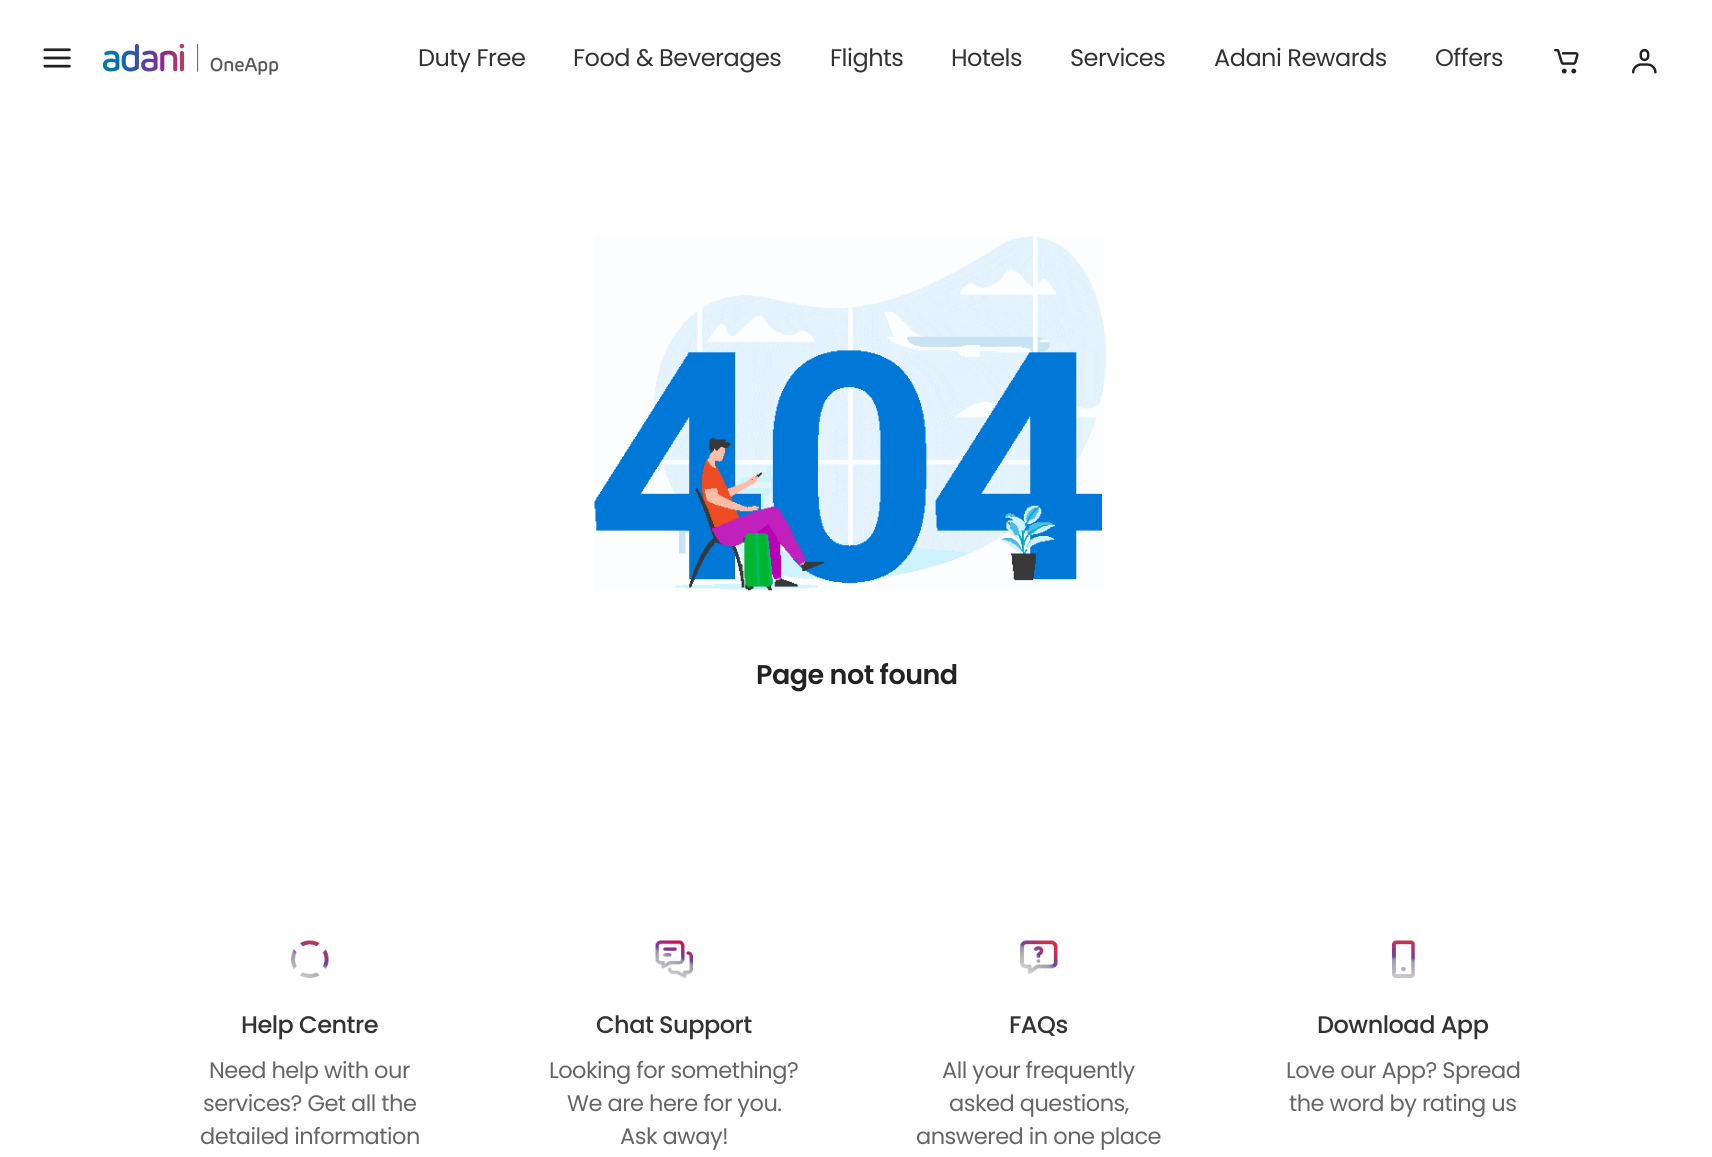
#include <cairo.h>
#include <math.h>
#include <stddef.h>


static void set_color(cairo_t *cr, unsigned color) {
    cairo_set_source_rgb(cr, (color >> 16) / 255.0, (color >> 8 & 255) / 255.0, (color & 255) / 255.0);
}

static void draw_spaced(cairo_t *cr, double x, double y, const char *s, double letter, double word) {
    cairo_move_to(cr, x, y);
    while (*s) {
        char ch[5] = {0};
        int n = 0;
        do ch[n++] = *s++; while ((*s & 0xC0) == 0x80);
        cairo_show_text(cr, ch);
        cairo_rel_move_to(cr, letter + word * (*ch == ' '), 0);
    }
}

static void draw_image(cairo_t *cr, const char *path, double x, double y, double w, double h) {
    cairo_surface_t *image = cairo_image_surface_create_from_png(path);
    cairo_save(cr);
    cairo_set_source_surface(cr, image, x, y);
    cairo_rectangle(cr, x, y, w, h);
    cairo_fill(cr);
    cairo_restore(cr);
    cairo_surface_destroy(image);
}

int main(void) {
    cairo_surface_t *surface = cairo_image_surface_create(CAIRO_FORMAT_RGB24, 1712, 1157);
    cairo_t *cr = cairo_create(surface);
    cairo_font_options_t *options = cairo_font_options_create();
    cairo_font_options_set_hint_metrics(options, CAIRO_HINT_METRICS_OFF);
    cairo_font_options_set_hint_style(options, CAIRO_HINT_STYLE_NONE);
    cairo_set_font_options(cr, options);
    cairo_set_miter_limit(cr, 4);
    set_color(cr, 0xFFFFFF);
    cairo_paint(cr);
    draw_image(cr, "assets/img1.png", 43, 48, 28, 20);
    draw_image(cr, "assets/img2.png", 102, 44, 177, 31);
    cairo_select_font_face(cr, "Poppins", CAIRO_FONT_SLANT_NORMAL, CAIRO_FONT_WEIGHT_NORMAL);
    cairo_set_font_size(cr, 24);
    set_color(cr, 0x333333);
    draw_spaced(cr, 418, 66, "Duty Free", -0.5, 0);
    draw_spaced(cr, 573, 66, "Food & Beverages", -0.5, 0);
    draw_spaced(cr, 830, 66, "Flights", -0.5, 0);
    draw_spaced(cr, 951, 66, "Hotels", -0.5, 0);
    draw_spaced(cr, 1070, 66, "Services", -0.5, 0);
    draw_spaced(cr, 1214, 66, "Adani Rewards", -0.5, 0);
    draw_spaced(cr, 1435, 66, "Offers", -0.5, 0);
    draw_image(cr, "assets/img3.png", 1554, 48, 25, 26);
    draw_image(cr, "assets/img4.png", 1632, 48, 25, 26);
    draw_image(cr, "assets/img5.png", 594, 236, 512, 355);
    cairo_select_font_face(cr, "Poppins SemiBold", CAIRO_FONT_SLANT_NORMAL, CAIRO_FONT_WEIGHT_NORMAL);
    cairo_set_font_size(cr, 27);
    set_color(cr, 0x222222);
    draw_spaced(cr, 756, 684, "Page not found", -0.5, 0);
    draw_image(cr, "assets/img6.png", 291, 940, 38, 38);
    cairo_select_font_face(cr, "Poppins Medium", CAIRO_FONT_SLANT_NORMAL, CAIRO_FONT_WEIGHT_NORMAL);
    cairo_set_font_size(cr, 24);
    set_color(cr, 0x333333);
    draw_spaced(cr, 241, 1033, "Help Centre", -0.5, 0);
    cairo_select_font_face(cr, "Poppins", CAIRO_FONT_SLANT_NORMAL, CAIRO_FONT_WEIGHT_NORMAL);
    cairo_set_font_size(cr, 22.5);
    set_color(cr, 0x666666);
    draw_spaced(cr, 209, 1078, "Need help with our", -0.5, 0);
    draw_spaced(cr, 203, 1111, "services? Get all the", -0.5, 0);
    draw_spaced(cr, 200, 1144, "detailed information", -0.5, 0);
    draw_image(cr, "assets/img7.png", 655, 940, 38, 38);
    cairo_select_font_face(cr, "Poppins Medium", CAIRO_FONT_SLANT_NORMAL, CAIRO_FONT_WEIGHT_NORMAL);
    cairo_set_font_size(cr, 24);
    set_color(cr, 0x333333);
    draw_spaced(cr, 596, 1033, "Chat Support", -0.5, 0);
    cairo_select_font_face(cr, "Poppins", CAIRO_FONT_SLANT_NORMAL, CAIRO_FONT_WEIGHT_NORMAL);
    cairo_set_font_size(cr, 22.5);
    set_color(cr, 0x666666);
    draw_spaced(cr, 549, 1078, "Looking for something?", -0.5, 0);
    draw_spaced(cr, 567, 1111, "We are here for you.", -0.5, 0);
    draw_spaced(cr, 620, 1144, "Ask away!", -0.5, 0);
    draw_image(cr, "assets/img8.png", 1020, 940, 38, 35);
    cairo_select_font_face(cr, "Poppins Medium", CAIRO_FONT_SLANT_NORMAL, CAIRO_FONT_WEIGHT_NORMAL);
    cairo_set_font_size(cr, 24);
    set_color(cr, 0x333333);
    draw_spaced(cr, 1009, 1033, "FAQs", -0.5, 0);
    cairo_select_font_face(cr, "Poppins", CAIRO_FONT_SLANT_NORMAL, CAIRO_FONT_WEIGHT_NORMAL);
    cairo_set_font_size(cr, 22.5);
    set_color(cr, 0x666666);
    draw_spaced(cr, 942, 1078, "All your frequently", -0.5, 0);
    draw_spaced(cr, 949, 1111, "asked questions,", -0.5, 0);
    draw_spaced(cr, 916, 1144, "answered in one place", -0.5, 0);
    draw_image(cr, "assets/img9.png", 1392, 940, 24, 38);
    cairo_select_font_face(cr, "Poppins Medium", CAIRO_FONT_SLANT_NORMAL, CAIRO_FONT_WEIGHT_NORMAL);
    cairo_set_font_size(cr, 24);
    set_color(cr, 0x333333);
    draw_spaced(cr, 1317, 1033, "Download App", -0.5, 0);
    cairo_select_font_face(cr, "Poppins", CAIRO_FONT_SLANT_NORMAL, CAIRO_FONT_WEIGHT_NORMAL);
    cairo_set_font_size(cr, 22.5);
    set_color(cr, 0x666666);
    draw_spaced(cr, 1286, 1078, "Love our App? Spread", -0.5, 0);
    draw_spaced(cr, 1289, 1111, "the word by rating us", -0.5, 0);
    cairo_surface_write_to_png(surface, "output.png");
    cairo_font_options_destroy(options);
    cairo_destroy(cr);
    cairo_surface_destroy(surface);
    return 0;
}
